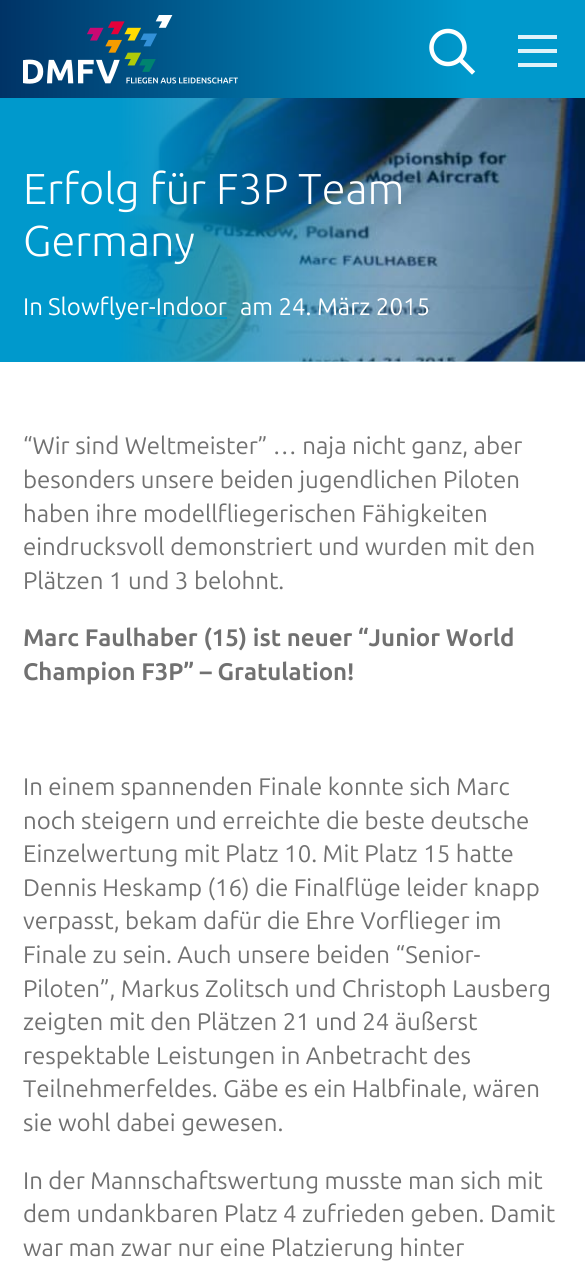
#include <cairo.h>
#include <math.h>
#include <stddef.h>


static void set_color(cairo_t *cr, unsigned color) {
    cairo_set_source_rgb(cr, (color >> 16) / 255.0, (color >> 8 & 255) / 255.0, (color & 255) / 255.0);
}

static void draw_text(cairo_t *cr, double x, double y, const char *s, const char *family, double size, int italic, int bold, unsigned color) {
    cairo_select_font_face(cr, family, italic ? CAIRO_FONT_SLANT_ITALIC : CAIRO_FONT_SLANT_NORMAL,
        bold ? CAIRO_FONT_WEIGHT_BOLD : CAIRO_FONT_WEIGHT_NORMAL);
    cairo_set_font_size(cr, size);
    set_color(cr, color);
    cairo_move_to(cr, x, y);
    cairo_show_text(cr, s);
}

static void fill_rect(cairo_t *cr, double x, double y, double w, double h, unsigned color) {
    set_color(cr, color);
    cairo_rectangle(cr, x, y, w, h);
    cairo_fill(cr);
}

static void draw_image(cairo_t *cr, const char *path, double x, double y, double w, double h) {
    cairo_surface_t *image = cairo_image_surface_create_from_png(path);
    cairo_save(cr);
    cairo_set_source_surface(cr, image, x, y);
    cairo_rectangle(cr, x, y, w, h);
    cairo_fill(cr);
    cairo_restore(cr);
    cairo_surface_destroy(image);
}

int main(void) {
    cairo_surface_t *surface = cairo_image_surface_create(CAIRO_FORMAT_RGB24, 585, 1276);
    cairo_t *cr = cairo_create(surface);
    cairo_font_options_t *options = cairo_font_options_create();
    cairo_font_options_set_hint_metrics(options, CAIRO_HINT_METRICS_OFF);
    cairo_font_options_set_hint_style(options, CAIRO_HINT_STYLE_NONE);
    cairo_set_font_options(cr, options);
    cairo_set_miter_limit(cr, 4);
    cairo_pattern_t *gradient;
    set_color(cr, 0xFFFFFF);
    cairo_paint(cr);
    gradient = cairo_pattern_create_linear(0, 49, 585, 49);
    cairo_pattern_add_color_stop_rgba(gradient, 0, 0, 0.2, 0.4, 1);
    cairo_pattern_add_color_stop_rgba(gradient, 0.8, 0, 0.6, 0.8, 1);
    cairo_set_source(cr, gradient);
    cairo_pattern_destroy(gradient);
    cairo_rectangle(cr, 0, 0, 585, 98);
    cairo_fill(cr);
    draw_image(cr, "assets/img1.png", 23, 15, 215, 69);
    cairo_arc(cr, 448, 47.5, 16.5, 0, 2 * M_PI);
    set_color(cr, 0xFFFFFF);
    cairo_set_line_width(cr, 4.5);
    cairo_stroke(cr);
    cairo_new_path(cr);
    cairo_move_to(cr, 460.5, 60);
    cairo_line_to(cr, 472, 71.5);
    cairo_set_line_cap(cr, CAIRO_LINE_CAP_SQUARE);
    cairo_stroke(cr);
    fill_rect(cr, 518, 35, 39, 4, 0xDFF2F9);
    fill_rect(cr, 518, 49, 39, 4, 0xDFF2F9);
    fill_rect(cr, 518, 63, 39, 4, 0xDFF2F9);
    draw_image(cr, "assets/img2.png", 119, 98, 466, 264);
    gradient = cairo_pattern_create_linear(0, 230, 585, 230);
    cairo_pattern_add_color_stop_rgba(gradient, 0, 0, 0.6, 0.8, 1);
    cairo_pattern_add_color_stop_rgba(gradient, 0.2, 0, 0.6, 0.8, 1);
    cairo_pattern_add_color_stop_rgba(gradient, 0.66, 0, 0.6, 0.8, 0.2);
    cairo_pattern_add_color_stop_rgba(gradient, 1, 0, 0.6, 0.8, 0.2);
    cairo_set_source(cr, gradient);
    cairo_pattern_destroy(gradient);
    cairo_rectangle(cr, 0, 98, 585, 264);
    cairo_fill(cr);
    draw_text(cr, 23, 204, "Erfolg für F3P Team", "Ubuntu Light", 43.25, 0, 0, 0xFFFFFF);
    draw_text(cr, 23, 256, "Germany", "Ubuntu Light", 43.25, 0, 0, 0xFFFFFF);
    draw_text(cr, 23, 315, "In", "Ubuntu", 24, 0, 0, 0xFFFFFF);
    fill_rect(cr, 123, 317, 104, 2, 0x0099CC);
    draw_text(cr, 48, 315, "Slowflyer-Indoor", "Ubuntu", 24, 0, 0, 0xFFFFFF);
    draw_text(cr, 240, 315, "am 24. März 2015", "Ubuntu", 24, 0, 0, 0xFFFFFF);
    draw_text(cr, 23, 454, "“Wir sind Weltmeister” … naja nicht ganz, aber", "Ubuntu", 24, 0, 0, 0x717171);
    draw_text(cr, 23, 488, "besonders unsere beiden jugendlichen Piloten", "Ubuntu", 24, 0, 0, 0x717171);
    draw_text(cr, 23, 522, "haben ihre modellfliegerischen Fähigkeiten", "Ubuntu", 24, 0, 0, 0x717171);
    draw_text(cr, 23, 555, "eindrucksvoll demonstriert und wurden mit den", "Ubuntu", 24, 0, 0, 0x717171);
    draw_text(cr, 23, 589, "Plätzen 1 und 3 belohnt.", "Ubuntu", 24, 0, 0, 0x717171);
    draw_text(cr, 23, 646, "Marc Faulhaber (15) ist neuer “Junior World", "Ubuntu", 24, 0, 1, 0x717171);
    draw_text(cr, 23, 680, "Champion F3P” – Gratulation!", "Ubuntu", 24, 0, 1, 0x717171);
    draw_text(cr, 23, 795, "In einem spannenden Finale konnte sich Marc", "Ubuntu", 24, 0, 0, 0x717171);
    draw_text(cr, 23, 829, "noch steigern und erreichte die beste deutsche", "Ubuntu", 24, 0, 0, 0x717171);
    draw_text(cr, 23, 862, "Einzelwertung mit Platz 10. Mit Platz 15 hatte", "Ubuntu", 24, 0, 0, 0x717171);
    draw_text(cr, 23, 896, "Dennis Heskamp (16) die Finalflüge leider knapp", "Ubuntu", 24, 0, 0, 0x717171);
    draw_text(cr, 23, 929, "verpasst, bekam dafür die Ehre Vorflieger im", "Ubuntu", 24, 0, 0, 0x717171);
    draw_text(cr, 23, 963, "Finale zu sein. Auch unsere beiden “Senior-", "Ubuntu", 24, 0, 0, 0x717171);
    draw_text(cr, 23, 997, "Piloten”, Markus Zolitsch und Christoph Lausberg", "Ubuntu", 24, 0, 0, 0x717171);
    draw_text(cr, 23, 1030, "zeigten mit den Plätzen 21 und 24 äußerst", "Ubuntu", 24, 0, 0, 0x717171);
    draw_text(cr, 23, 1064, "respektable Leistungen in Anbetracht des", "Ubuntu", 24, 0, 0, 0x717171);
    draw_text(cr, 23, 1097, "Teilnehmerfeldes. Gäbe es ein Halbfinale, wären", "Ubuntu", 24, 0, 0, 0x717171);
    draw_text(cr, 23, 1131, "sie wohl dabei gewesen.", "Ubuntu", 24, 0, 0, 0x717171);
    draw_text(cr, 23, 1189, "In der Mannschaftswertung musste man sich mit", "Ubuntu", 24, 0, 0, 0x717171);
    draw_text(cr, 23, 1222, "dem undankbaren Platz 4 zufrieden geben. Damit", "Ubuntu", 24, 0, 0, 0x717171);
    draw_text(cr, 23, 1256, "war man zwar nur eine Platzierung hinter", "Ubuntu", 24, 0, 0, 0x717171);
    cairo_surface_write_to_png(surface, "output.png");
    cairo_font_options_destroy(options);
    cairo_destroy(cr);
    cairo_surface_destroy(surface);
    return 0;
}
